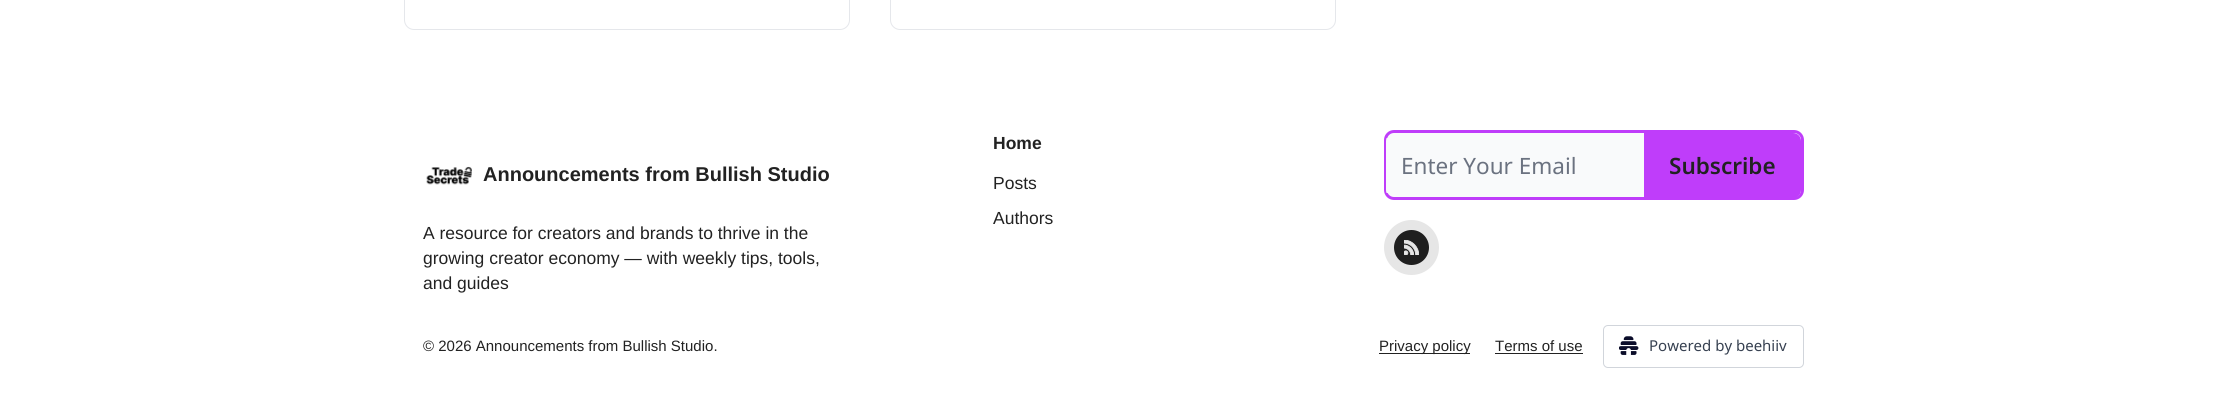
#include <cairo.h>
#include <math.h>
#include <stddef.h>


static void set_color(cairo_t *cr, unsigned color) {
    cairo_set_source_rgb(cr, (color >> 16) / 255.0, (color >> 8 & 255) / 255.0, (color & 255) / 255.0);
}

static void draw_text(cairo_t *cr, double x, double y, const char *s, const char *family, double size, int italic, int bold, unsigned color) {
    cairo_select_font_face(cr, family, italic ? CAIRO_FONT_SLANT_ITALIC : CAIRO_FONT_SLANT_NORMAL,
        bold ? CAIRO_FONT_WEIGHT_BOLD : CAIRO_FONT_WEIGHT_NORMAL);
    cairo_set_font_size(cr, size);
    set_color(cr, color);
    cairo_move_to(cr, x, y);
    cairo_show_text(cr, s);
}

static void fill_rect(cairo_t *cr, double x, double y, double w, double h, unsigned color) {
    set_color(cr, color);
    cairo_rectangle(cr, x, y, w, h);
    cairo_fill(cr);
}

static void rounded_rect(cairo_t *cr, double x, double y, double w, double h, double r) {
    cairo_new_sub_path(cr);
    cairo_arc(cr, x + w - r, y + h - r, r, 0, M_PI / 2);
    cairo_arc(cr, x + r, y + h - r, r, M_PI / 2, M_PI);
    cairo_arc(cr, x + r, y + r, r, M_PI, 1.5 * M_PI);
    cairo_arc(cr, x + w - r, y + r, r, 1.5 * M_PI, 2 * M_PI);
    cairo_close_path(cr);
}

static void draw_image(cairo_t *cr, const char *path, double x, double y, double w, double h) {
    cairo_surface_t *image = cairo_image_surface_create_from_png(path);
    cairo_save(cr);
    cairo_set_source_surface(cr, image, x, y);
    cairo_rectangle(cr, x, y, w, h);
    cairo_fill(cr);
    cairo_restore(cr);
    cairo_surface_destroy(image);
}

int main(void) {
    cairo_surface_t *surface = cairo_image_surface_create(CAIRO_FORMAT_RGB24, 2226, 407);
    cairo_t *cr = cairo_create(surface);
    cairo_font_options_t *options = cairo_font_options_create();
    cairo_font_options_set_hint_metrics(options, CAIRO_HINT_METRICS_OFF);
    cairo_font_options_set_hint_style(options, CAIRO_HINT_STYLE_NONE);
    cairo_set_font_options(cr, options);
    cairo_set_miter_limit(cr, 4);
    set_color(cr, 0xFFFFFF);
    cairo_paint(cr);
    rounded_rect(cr, 404.5, -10.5, 445, 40, 9.5);
    set_color(cr, 0xE5E7EB);
    cairo_set_line_width(cr, 1);
    cairo_stroke(cr);
    rounded_rect(cr, 890.5, -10.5, 445, 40, 9.5);
    cairo_stroke(cr);
    draw_image(cr, "assets/img1.png", 426, 166, 46, 19);
    draw_text(cr, 483, 181, "Announcements from Bullish Studio", "Liberation Sans", 20, 0, 1, 0x222222);
    draw_text(cr, 423, 239, "A resource for creators and brands to thrive in the", "Liberation Sans", 17.5, 0, 0, 0x222222);
    draw_text(cr, 423, 264, "growing creator economy — with weekly tips, tools,", "Liberation Sans", 17.5, 0, 0, 0x222222);
    draw_text(cr, 423, 289, "and guides", "Liberation Sans", 17.5, 0, 0, 0x222222);
    draw_text(cr, 993, 149, "Home", "Liberation Sans", 17.5, 0, 1, 0x222222);
    draw_text(cr, 993, 189, "Posts", "Liberation Sans", 17.5, 0, 0, 0x222222);
    draw_text(cr, 993, 224, "Authors", "Liberation Sans", 17.5, 0, 0, 0x222222);
    set_color(cr, 0xF9FAFB);
    rounded_rect(cr, 1385.5, 131.5, 417, 67, 8.5);
    cairo_fill_preserve(cr);
    set_color(cr, 0xBF3DFA);
    cairo_set_line_width(cr, 3);
    cairo_stroke(cr);
    cairo_save(cr);
    rounded_rect(cr, 1386, 133, 415, 65, 8);
    cairo_clip(cr);
    fill_rect(cr, 1386, 138, 258, 55, 0xF9FAFB);
    cairo_restore(cr);
    draw_text(cr, 1401, 174, "Enter Your Email", "Noto Sans", 22.5, 0, 0, 0x6B7280);
    set_color(cr, 0xBF3DFA);
    cairo_new_path(cr);
    cairo_move_to(cr, 1644, 133);
    cairo_line_to(cr, 1793, 133);
    cairo_curve_to(cr, 1797.5, 133, 1801, 136.5, 1801, 141);
    cairo_line_to(cr, 1801, 190);
    cairo_curve_to(cr, 1801, 194.5, 1797.5, 198, 1793, 198);
    cairo_line_to(cr, 1644, 198);
    cairo_close_path(cr);
    cairo_fill(cr);
    draw_text(cr, 1669, 174, "Subscribe", "Noto Sans SemiBold", 22.5, 0, 0, 0x222222);
    cairo_new_path(cr);
    cairo_arc(cr, 1411.5, 247.5, 17.5, 0, 2 * M_PI);
    cairo_fill(cr);
    draw_image(cr, "assets/img2.png", 1404, 240, 15, 15);
    cairo_set_source_rgba(cr, 0, 0, 0, 0.1);
    cairo_arc(cr, 1411.5, 247.5, 27.5, 0, 2 * M_PI);
    cairo_fill(cr);
    draw_text(cr, 423, 351, "© 2026 Announcements from Bullish Studio.", "Liberation Sans", 15, 0, 0, 0x222222);
    fill_rect(cr, 1379, 353, 91, 1, 0x222222);
    draw_text(cr, 1379, 351, "Privacy policy", "Liberation Sans", 15, 0, 0, 0x222222);
    draw_text(cr, 1495, 351, "Terms of use", "Liberation Sans", 15, 0, 0, 0x222222);
    fill_rect(cr, 1495, 353, 88, 1, 0x222222);
    rounded_rect(cr, 1603.5, 325.5, 200, 42, 4.5);
    set_color(cr, 0xD1D5DB);
    cairo_set_line_width(cr, 1);
    cairo_stroke(cr);
    draw_image(cr, "assets/img3.png", 1619, 336, 20, 19);
    draw_text(cr, 1649, 351, "Powered by beehiiv", "Noto Sans", 15, 0, 0, 0x374151);
    cairo_surface_write_to_png(surface, "output.png");
    cairo_font_options_destroy(options);
    cairo_destroy(cr);
    cairo_surface_destroy(surface);
    return 0;
}
